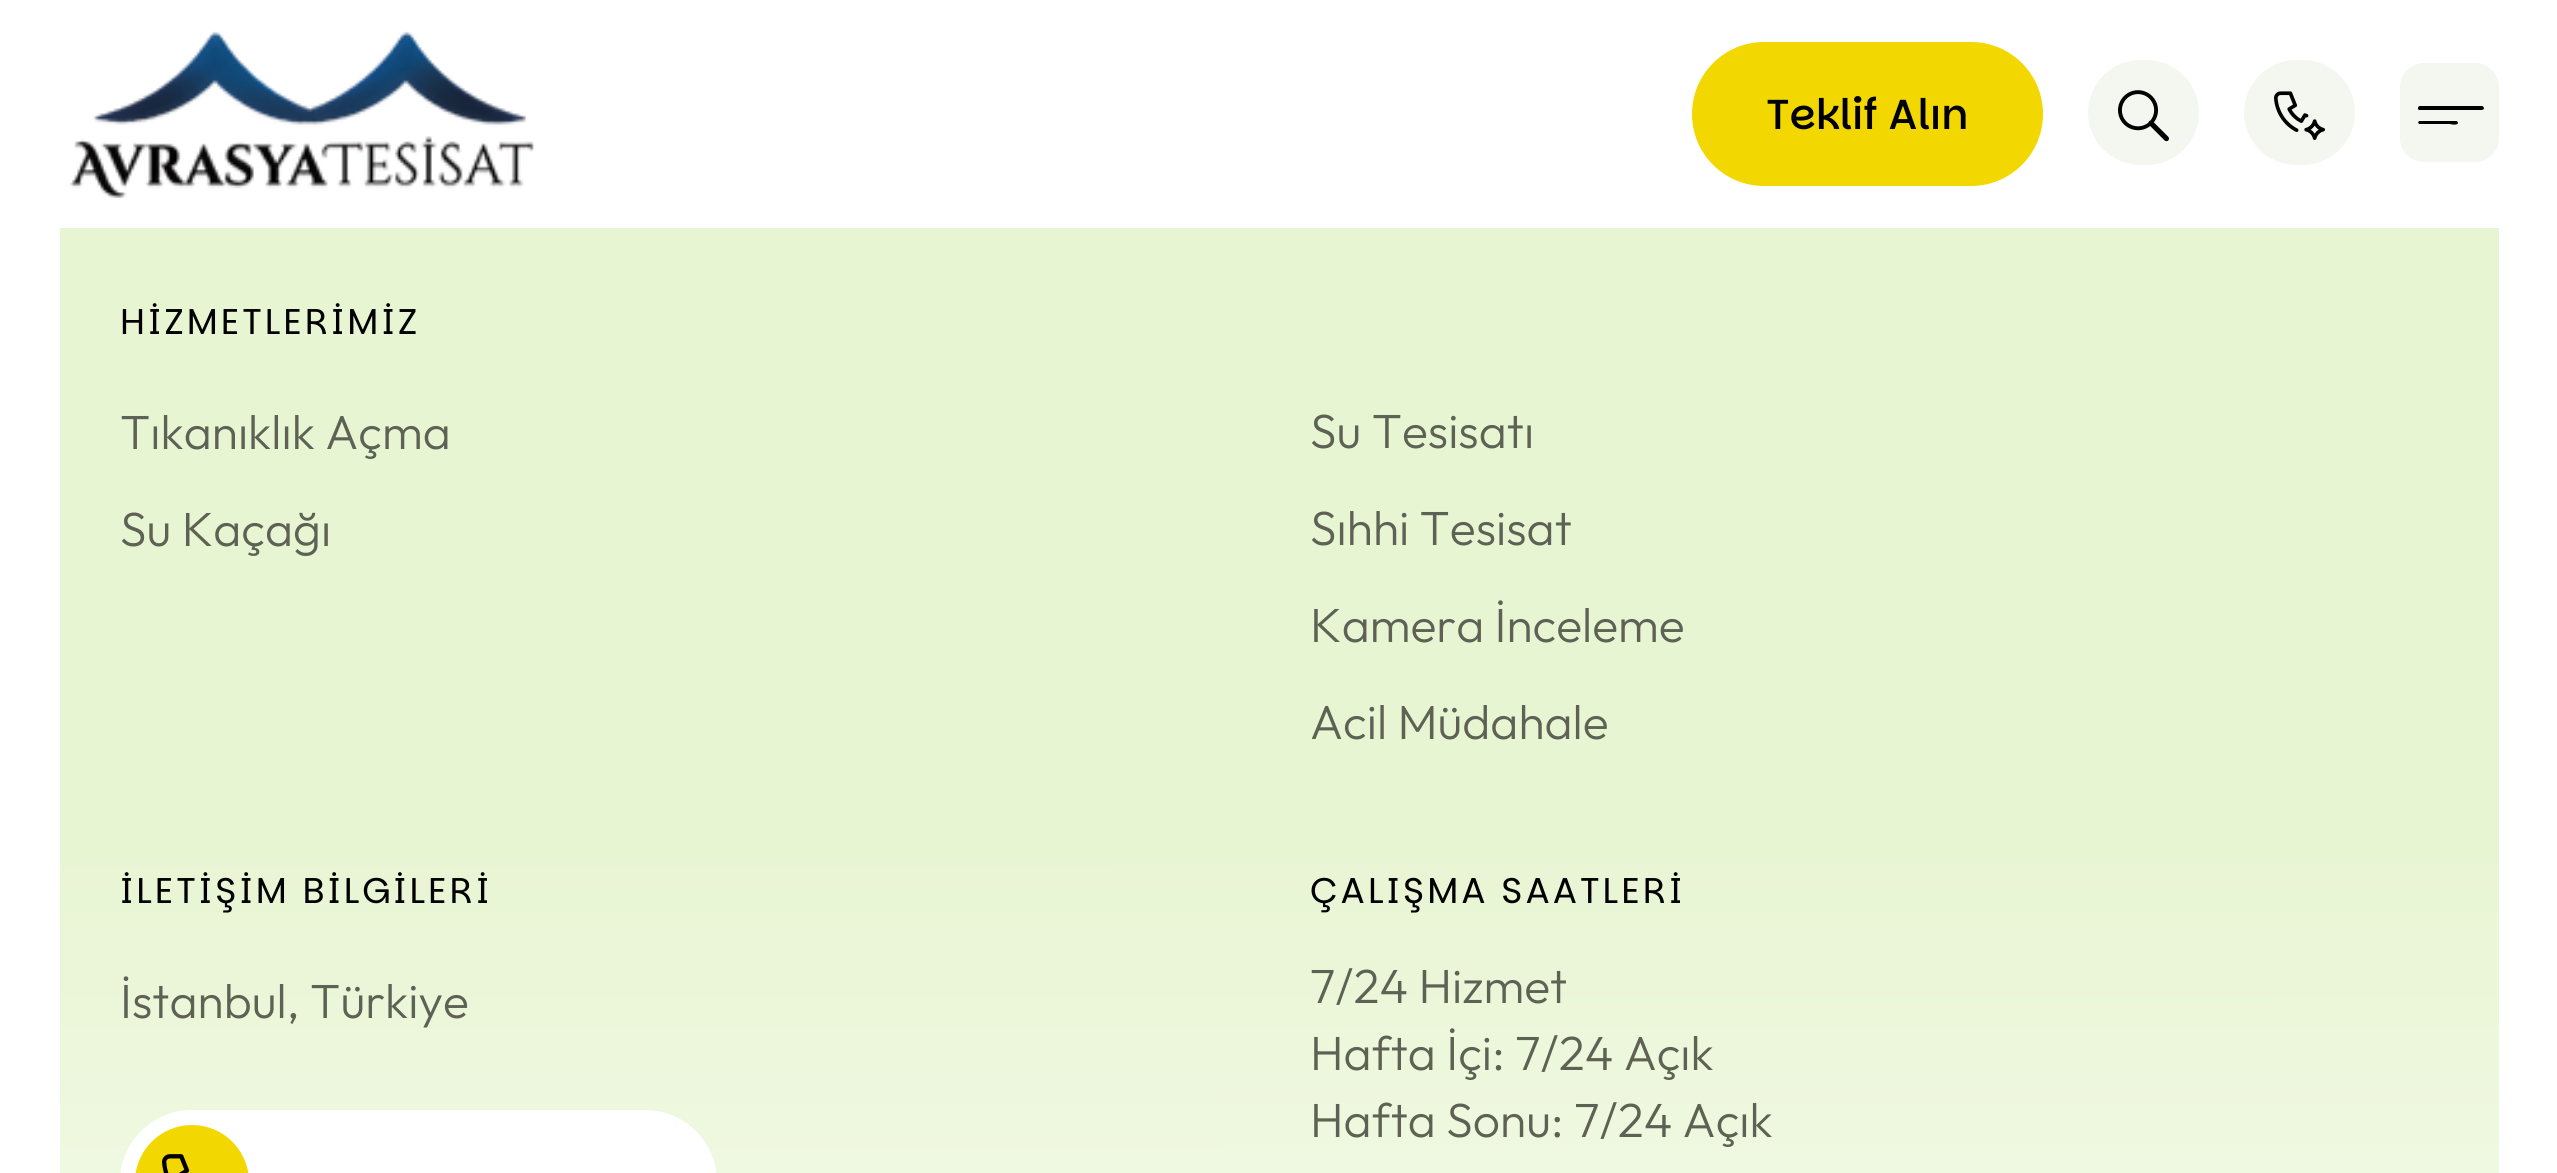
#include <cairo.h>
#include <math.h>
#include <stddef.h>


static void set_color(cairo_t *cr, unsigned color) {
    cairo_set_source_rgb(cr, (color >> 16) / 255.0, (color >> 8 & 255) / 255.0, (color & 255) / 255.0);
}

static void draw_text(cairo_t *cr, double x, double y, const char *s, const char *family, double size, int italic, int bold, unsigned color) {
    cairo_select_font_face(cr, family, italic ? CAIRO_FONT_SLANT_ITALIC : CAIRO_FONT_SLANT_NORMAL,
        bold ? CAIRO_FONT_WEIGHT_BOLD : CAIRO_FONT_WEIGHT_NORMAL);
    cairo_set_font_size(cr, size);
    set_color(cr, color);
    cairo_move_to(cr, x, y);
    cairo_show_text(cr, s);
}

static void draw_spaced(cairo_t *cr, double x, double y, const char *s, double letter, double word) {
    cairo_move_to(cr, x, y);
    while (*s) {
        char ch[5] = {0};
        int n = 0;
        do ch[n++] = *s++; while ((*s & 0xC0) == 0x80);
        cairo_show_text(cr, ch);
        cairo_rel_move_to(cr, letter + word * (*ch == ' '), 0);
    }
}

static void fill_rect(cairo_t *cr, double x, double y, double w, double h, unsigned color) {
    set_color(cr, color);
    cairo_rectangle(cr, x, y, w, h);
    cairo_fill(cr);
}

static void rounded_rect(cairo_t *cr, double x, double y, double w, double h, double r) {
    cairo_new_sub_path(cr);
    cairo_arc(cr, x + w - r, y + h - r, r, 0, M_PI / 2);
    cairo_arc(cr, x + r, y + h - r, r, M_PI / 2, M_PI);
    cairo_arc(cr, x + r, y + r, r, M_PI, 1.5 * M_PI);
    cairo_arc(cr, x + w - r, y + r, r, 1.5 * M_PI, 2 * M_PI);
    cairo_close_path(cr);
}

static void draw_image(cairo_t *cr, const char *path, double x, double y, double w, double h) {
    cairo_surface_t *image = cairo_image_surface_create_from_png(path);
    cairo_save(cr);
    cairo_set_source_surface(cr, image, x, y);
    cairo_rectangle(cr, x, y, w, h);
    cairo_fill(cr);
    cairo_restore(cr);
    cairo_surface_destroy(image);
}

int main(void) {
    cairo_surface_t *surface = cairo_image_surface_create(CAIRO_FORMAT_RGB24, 2557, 1173);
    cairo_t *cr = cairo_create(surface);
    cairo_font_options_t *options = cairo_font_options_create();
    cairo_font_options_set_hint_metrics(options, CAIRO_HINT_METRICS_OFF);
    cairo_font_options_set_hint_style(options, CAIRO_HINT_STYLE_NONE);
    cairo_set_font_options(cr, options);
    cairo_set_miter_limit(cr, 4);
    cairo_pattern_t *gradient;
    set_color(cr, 0xFFFFFF);
    cairo_paint(cr);
    gradient = cairo_pattern_create_linear(1279, -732, 1280, 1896);
    cairo_pattern_add_color_stop_rgba(gradient, 0.6, 0.91, 0.961, 0.827, 1);
    cairo_pattern_add_color_stop_rgba(gradient, 1, 1, 1, 1, 1);
    cairo_set_source(cr, gradient);
    cairo_pattern_destroy(gradient);
    cairo_new_path(cr);
    cairo_move_to(cr, 60, -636);
    cairo_line_to(cr, 60, 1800);
    cairo_line_to(cr, 61, 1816);
    cairo_line_to(cr, 65, 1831);
    cairo_line_to(cr, 71, 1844);
    cairo_line_to(cr, 79, 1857);
    cairo_line_to(cr, 88, 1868);
    cairo_line_to(cr, 99, 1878);
    cairo_line_to(cr, 112, 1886);
    cairo_line_to(cr, 126, 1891);
    cairo_line_to(cr, 140, 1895);
    cairo_line_to(cr, 152, 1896);
    cairo_line_to(cr, 2407, 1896);
    cairo_line_to(cr, 2419, 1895);
    cairo_line_to(cr, 2433, 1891);
    cairo_line_to(cr, 2447, 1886);
    cairo_line_to(cr, 2460, 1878);
    cairo_line_to(cr, 2471, 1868);
    cairo_line_to(cr, 2480, 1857);
    cairo_line_to(cr, 2488, 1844);
    cairo_line_to(cr, 2494, 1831);
    cairo_line_to(cr, 2498, 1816);
    cairo_line_to(cr, 2499, 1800);
    cairo_line_to(cr, 2499, -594);
    cairo_line_to(cr, 2498, -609);
    cairo_line_to(cr, 2495, -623);
    cairo_line_to(cr, 2489, -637);
    cairo_line_to(cr, 2482, -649);
    cairo_line_to(cr, 2473, -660);
    cairo_line_to(cr, 2463, -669);
    cairo_line_to(cr, 2451, -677);
    cairo_line_to(cr, 2438, -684);
    cairo_line_to(cr, 2424, -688);
    cairo_line_to(cr, 2409, -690);
    cairo_line_to(cr, 182, -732);
    cairo_line_to(cr, 150, -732);
    cairo_line_to(cr, 140, -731);
    cairo_line_to(cr, 126, -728);
    cairo_line_to(cr, 112, -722);
    cairo_line_to(cr, 99, -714);
    cairo_line_to(cr, 88, -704);
    cairo_line_to(cr, 79, -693);
    cairo_line_to(cr, 71, -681);
    cairo_line_to(cr, 65, -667);
    cairo_line_to(cr, 61, -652);
    cairo_close_path(cr);
    cairo_fill(cr);
    fill_rect(cr, 60, 0, 2439, 228, 0xFFFFFF);
    draw_image(cr, "assets/img1.png", 69, 31, 465, 167);
    set_color(cr, 0xF2D701);
    rounded_rect(cr, 1692, 42, 351, 144, 72);
    cairo_fill(cr);
    draw_text(cr, 1766, 129, "Teklif Alın", "Parkinsans Medium", 42, 0, 0, 0x000000);
    set_color(cr, 0xF4F6F0);
    rounded_rect(cr, 2088, 60, 111, 105, 52.5);
    cairo_fill(cr);
    draw_image(cr, "assets/img2.png", 2118, 90, 51, 52);
    rounded_rect(cr, 2244, 60, 111, 105, 52.5);
    cairo_fill(cr);
    draw_image(cr, "assets/img3.png", 2274, 91, 51, 49);
    rounded_rect(cr, 2400, 63, 99, 99, 24);
    cairo_fill(cr);
    set_color(cr, 0x000000);
    cairo_new_path(cr);
    cairo_move_to(cr, 2482, 106);
    cairo_curve_to(cr, 2483, 106, 2484, 107, 2484, 109);
    cairo_line_to(cr, 2482, 110);
    cairo_line_to(cr, 2419, 110);
    cairo_curve_to(cr, 2417, 109, 2418, 106, 2420, 106);
    cairo_close_path(cr);
    cairo_move_to(cr, 2456, 121);
    cairo_curve_to(cr, 2457, 121, 2458, 122, 2458, 123);
    cairo_curve_to(cr, 2457, 126, 2450, 124, 2450, 124);
    cairo_line_to(cr, 2419, 124);
    cairo_curve_to(cr, 2418, 123, 2418, 122, 2419, 121);
    cairo_close_path(cr);
    cairo_fill(cr);
    cairo_select_font_face(cr, "Parkinsans", CAIRO_FONT_SLANT_NORMAL, CAIRO_FONT_WEIGHT_NORMAL);
    cairo_set_font_size(cr, 36);
    draw_spaced(cr, 120, 334, "HİZMETLERİMİZ", 3, 0);
    draw_text(cr, 120, 449, "Tıkanıklık Açma", "Outfit Light", 48, 0, 0, 0x5D6254);
    draw_text(cr, 120, 546, "Su Kaçağı", "Outfit Light", 48, 0, 0, 0x5D6254);
    draw_text(cr, 1310, 448, "Su Tesisatı", "Outfit Light", 48, 0, 0, 0x5D6254);
    draw_text(cr, 1310, 545, "Sıhhi Tesisat", "Outfit Light", 48, 0, 0, 0x5D6254);
    draw_text(cr, 1310, 642, "Kamera İnceleme", "Outfit Light", 48, 0, 0, 0x5D6254);
    draw_text(cr, 1310, 739, "Acil Müdahale", "Outfit Light", 48, 0, 0, 0x5D6254);
    cairo_select_font_face(cr, "Parkinsans", CAIRO_FONT_SLANT_NORMAL, CAIRO_FONT_WEIGHT_NORMAL);
    cairo_set_font_size(cr, 36);
    set_color(cr, 0x000000);
    draw_spaced(cr, 120, 903, "İLETİŞİM BİLGİLERİ", 3, 0);
    draw_text(cr, 120, 1018, "İstanbul, Türkiye", "Outfit Light", 48, 0, 0, 0x5D6254);
    set_color(cr, 0xFFFFFF);
    rounded_rect(cr, 120, 1110, 597, 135, 72);
    cairo_fill(cr);
    set_color(cr, 0xF2D701);
    rounded_rect(cr, 135, 1125, 114, 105, 57);
    cairo_fill(cr);
    draw_image(cr, "assets/img4.png", 162, 1154, 28, 19);
    cairo_select_font_face(cr, "Parkinsans", CAIRO_FONT_SLANT_NORMAL, CAIRO_FONT_WEIGHT_NORMAL);
    cairo_set_font_size(cr, 36);
    set_color(cr, 0x000000);
    draw_spaced(cr, 1310, 903, "ÇALIŞMA SAATLERİ", 3, 0);
    draw_text(cr, 1310, 1003, "7/24 Hizmet", "Outfit Light", 48, 0, 0, 0x5D6254);
    draw_text(cr, 1310, 1070, "Hafta İçi: 7/24 Açık", "Outfit Light", 48, 0, 0, 0x5D6254);
    draw_text(cr, 1310, 1137, "Hafta Sonu: 7/24 Açık", "Outfit Light", 48, 0, 0, 0x5D6254);
    cairo_surface_write_to_png(surface, "output.png");
    cairo_font_options_destroy(options);
    cairo_destroy(cr);
    cairo_surface_destroy(surface);
    return 0;
}
